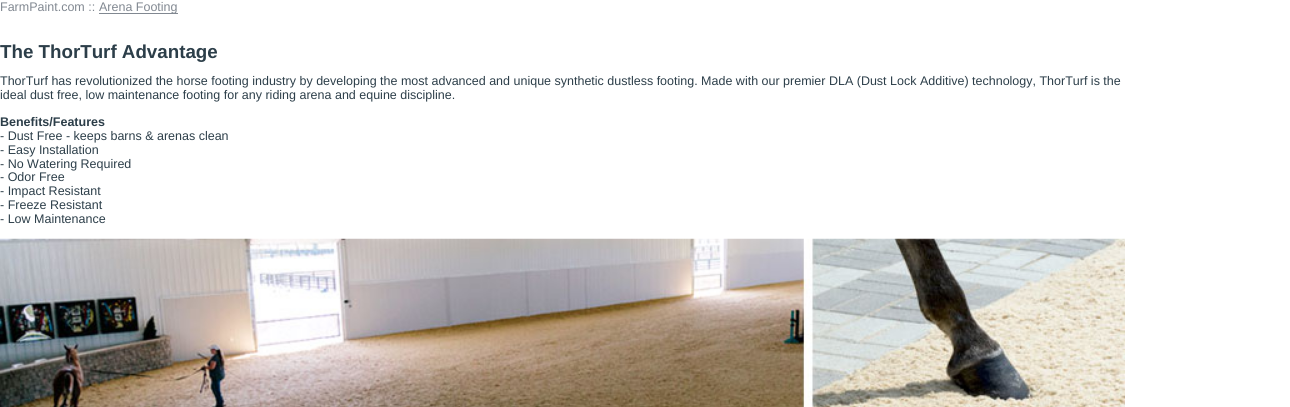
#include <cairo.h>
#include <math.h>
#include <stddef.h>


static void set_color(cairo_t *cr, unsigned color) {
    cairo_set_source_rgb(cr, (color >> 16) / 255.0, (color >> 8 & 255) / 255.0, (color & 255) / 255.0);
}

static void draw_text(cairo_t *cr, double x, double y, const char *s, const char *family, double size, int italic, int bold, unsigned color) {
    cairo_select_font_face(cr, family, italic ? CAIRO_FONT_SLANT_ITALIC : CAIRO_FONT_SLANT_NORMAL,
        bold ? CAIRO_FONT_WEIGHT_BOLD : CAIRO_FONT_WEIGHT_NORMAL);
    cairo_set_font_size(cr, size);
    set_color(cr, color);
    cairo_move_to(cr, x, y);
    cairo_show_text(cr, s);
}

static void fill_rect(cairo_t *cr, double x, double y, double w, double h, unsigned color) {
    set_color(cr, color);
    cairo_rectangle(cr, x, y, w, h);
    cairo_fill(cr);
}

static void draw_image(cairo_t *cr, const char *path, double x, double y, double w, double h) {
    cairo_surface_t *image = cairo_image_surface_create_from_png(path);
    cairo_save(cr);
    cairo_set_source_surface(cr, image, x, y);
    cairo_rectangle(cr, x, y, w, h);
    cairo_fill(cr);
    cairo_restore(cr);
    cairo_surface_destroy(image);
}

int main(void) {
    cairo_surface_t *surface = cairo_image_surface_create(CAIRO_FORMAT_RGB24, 1290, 407);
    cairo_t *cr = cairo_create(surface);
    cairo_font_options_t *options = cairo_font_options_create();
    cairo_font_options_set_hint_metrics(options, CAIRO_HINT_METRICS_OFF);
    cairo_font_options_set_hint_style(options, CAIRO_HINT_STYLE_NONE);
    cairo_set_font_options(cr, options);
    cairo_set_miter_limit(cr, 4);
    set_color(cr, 0xFFFFFF);
    cairo_paint(cr);
    draw_text(cr, 0, 11, "FarmPaint.com ::", "Liberation Sans", 12.5, 0, 0, 0x818891);
    fill_rect(cr, 99, 13, 79, 1, 0x818891);
    draw_text(cr, 99, 11, "Arena Footing", "Liberation Sans", 12.5, 0, 0, 0x818891);
    draw_text(cr, 0, 58, "The ThorTurf Advantage", "Liberation Sans", 18.75, 0, 1, 0x2C3E49);
    draw_text(cr, 0, 85, "ThorTurf has revolutionized the horse footing industry by developing the most advanced and unique synthetic dustless footing. Made with our premier DLA (Dust Lock Additive) technology, ThorTurf is the", "Liberation Sans", 12.5, 0, 0, 0x2C3E49);
    draw_text(cr, 0, 99, "ideal dust free, low maintenance footing for any riding arena and equine discipline.", "Liberation Sans", 12.5, 0, 0, 0x2C3E49);
    draw_text(cr, 0, 126, "Benefits/Features", "Liberation Sans", 12.5, 0, 1, 0x2C3E49);
    draw_text(cr, 0, 140, "- Dust Free - keeps barns & arenas clean", "Liberation Sans", 12.5, 0, 0, 0x2C3E49);
    draw_text(cr, 0, 154, "- Easy Installation", "Liberation Sans", 12.5, 0, 0, 0x2C3E49);
    draw_text(cr, 0, 168, "- No Watering Required", "Liberation Sans", 12.5, 0, 0, 0x2C3E49);
    draw_text(cr, 0, 181, "- Odor Free", "Liberation Sans", 12.5, 0, 0, 0x2C3E49);
    draw_text(cr, 0, 195, "- Impact Resistant", "Liberation Sans", 12.5, 0, 0, 0x2C3E49);
    draw_text(cr, 0, 209, "- Freeze Resistant", "Liberation Sans", 12.5, 0, 0, 0x2C3E49);
    draw_text(cr, 0, 223, "- Low Maintenance", "Liberation Sans", 12.5, 0, 0, 0x2C3E49);
    draw_image(cr, "assets/img1.png", 0, 238, 1125, 169);
    cairo_surface_write_to_png(surface, "output.png");
    cairo_font_options_destroy(options);
    cairo_destroy(cr);
    cairo_surface_destroy(surface);
    return 0;
}
